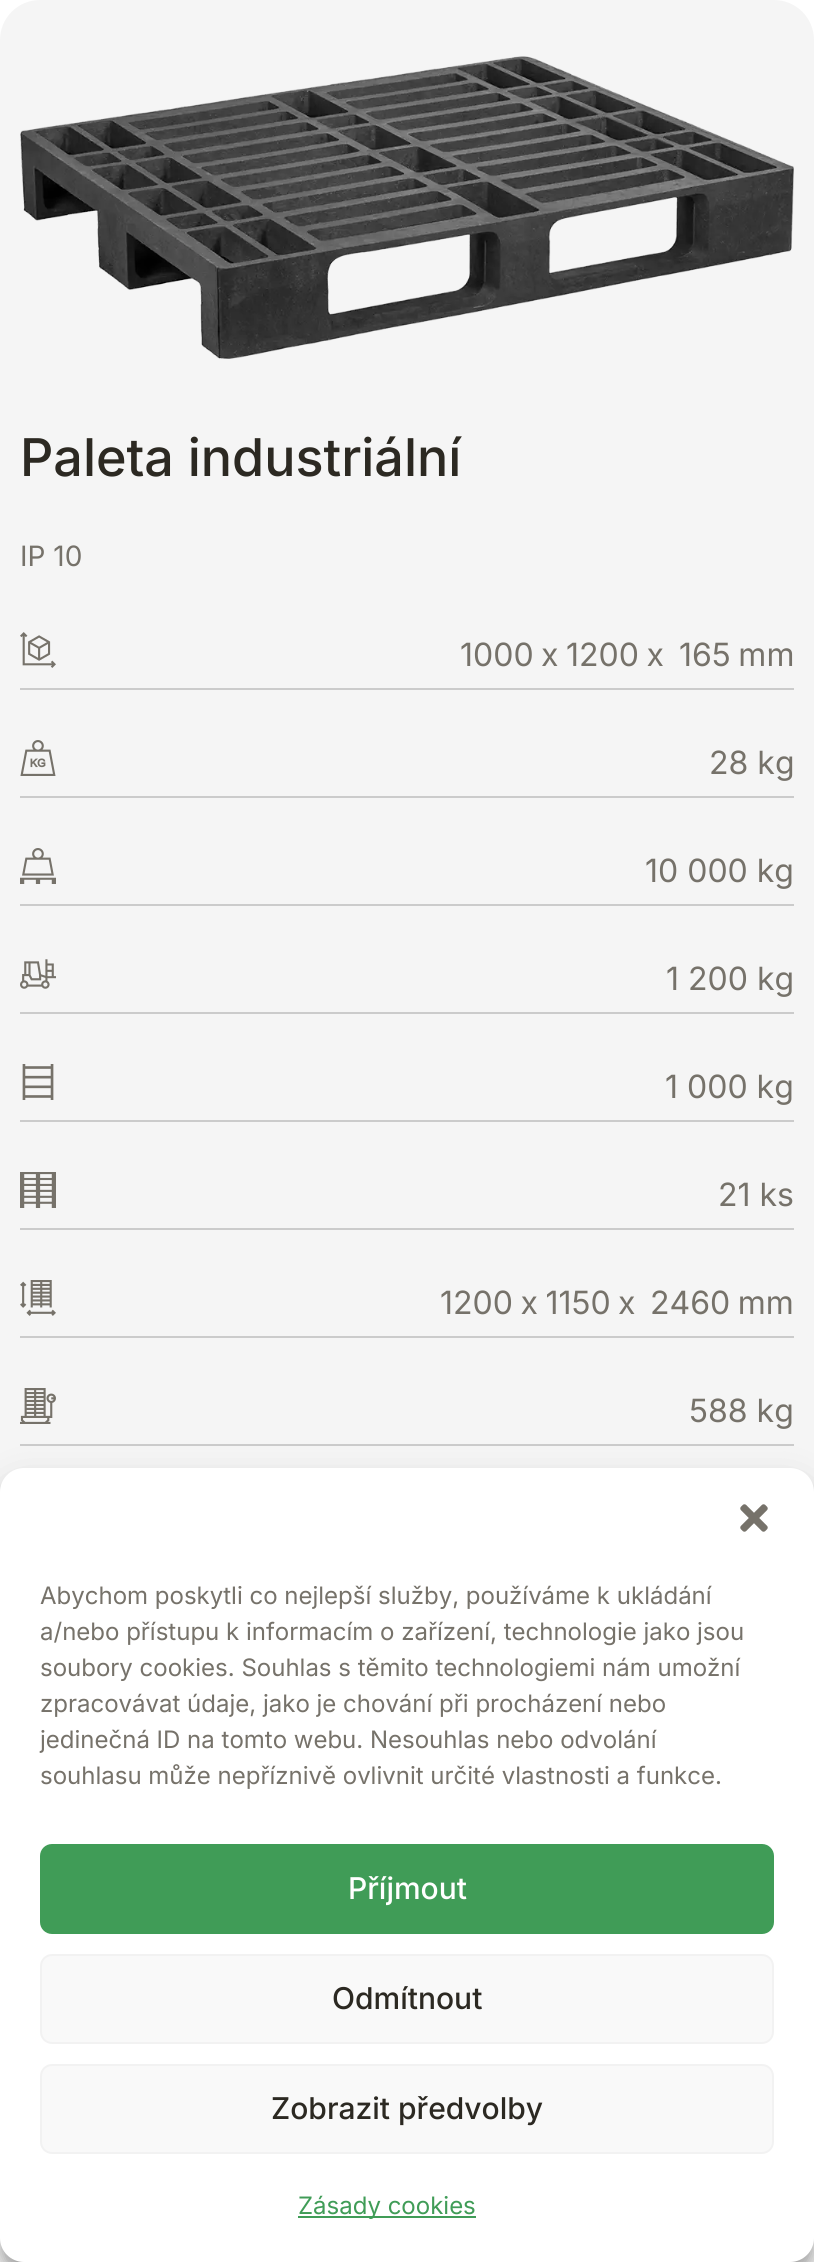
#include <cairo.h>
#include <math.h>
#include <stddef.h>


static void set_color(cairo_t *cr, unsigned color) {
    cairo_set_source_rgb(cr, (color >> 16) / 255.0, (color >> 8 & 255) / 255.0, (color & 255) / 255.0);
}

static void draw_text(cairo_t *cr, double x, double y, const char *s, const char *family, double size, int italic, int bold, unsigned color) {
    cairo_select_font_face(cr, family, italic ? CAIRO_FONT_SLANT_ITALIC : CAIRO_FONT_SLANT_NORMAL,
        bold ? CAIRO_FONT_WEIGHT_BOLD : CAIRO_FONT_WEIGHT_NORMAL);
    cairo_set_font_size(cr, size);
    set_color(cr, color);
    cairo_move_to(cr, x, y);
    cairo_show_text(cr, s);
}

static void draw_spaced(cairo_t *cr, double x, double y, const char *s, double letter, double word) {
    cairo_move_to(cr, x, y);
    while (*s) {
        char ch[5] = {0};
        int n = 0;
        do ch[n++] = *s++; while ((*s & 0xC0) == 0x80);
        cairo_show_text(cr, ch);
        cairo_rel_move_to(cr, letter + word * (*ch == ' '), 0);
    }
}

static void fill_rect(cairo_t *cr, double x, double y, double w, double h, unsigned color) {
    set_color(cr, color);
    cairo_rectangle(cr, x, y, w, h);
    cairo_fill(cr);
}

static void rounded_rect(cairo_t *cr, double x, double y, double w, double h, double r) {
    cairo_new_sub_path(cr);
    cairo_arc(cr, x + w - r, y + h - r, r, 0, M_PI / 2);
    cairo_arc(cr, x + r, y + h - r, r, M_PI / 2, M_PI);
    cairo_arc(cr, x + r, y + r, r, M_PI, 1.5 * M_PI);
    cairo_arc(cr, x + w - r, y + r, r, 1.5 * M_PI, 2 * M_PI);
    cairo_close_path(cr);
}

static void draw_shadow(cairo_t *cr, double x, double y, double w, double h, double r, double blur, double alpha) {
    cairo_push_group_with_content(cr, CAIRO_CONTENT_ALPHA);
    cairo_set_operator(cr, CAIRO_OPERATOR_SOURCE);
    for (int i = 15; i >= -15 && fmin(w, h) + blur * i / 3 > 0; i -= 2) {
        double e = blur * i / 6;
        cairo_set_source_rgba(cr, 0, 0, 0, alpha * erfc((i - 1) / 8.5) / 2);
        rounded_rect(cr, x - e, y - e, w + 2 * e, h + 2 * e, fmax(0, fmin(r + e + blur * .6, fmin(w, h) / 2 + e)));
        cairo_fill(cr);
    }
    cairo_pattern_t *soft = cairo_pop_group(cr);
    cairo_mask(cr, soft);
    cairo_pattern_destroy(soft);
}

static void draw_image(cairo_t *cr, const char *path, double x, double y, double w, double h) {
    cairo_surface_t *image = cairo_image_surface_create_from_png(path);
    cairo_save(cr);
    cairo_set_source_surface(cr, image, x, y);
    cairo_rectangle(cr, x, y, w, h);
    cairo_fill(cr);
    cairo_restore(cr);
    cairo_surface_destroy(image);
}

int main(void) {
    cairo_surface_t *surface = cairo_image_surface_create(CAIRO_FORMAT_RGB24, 814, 2262);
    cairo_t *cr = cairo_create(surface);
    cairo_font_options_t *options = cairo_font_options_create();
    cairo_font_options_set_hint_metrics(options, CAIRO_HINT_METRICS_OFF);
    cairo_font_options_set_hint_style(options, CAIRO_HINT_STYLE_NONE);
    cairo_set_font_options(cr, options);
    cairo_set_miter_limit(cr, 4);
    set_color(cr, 0xFFFFFF);
    cairo_paint(cr);
    set_color(cr, 0xF5F5F5);
    rounded_rect(cr, 0, 0, 814, 1584, 40);
    cairo_fill(cr);
    draw_image(cr, "assets/img1.png", 20, 56, 774, 303);
    draw_text(cr, 20, 476, "Paleta industriální", "Inter Medium", 52, 0, 0, 0x2C2922);
    draw_text(cr, 20, 566, "IP 10", "Inter", 28, 0, 0, 0x76726A);
    fill_rect(cr, 20, 688, 774, 2, 0xCBCBCB);
    draw_image(cr, "assets/img2.png", 20, 632, 36, 36);
    cairo_set_font_size(cr, 32);
    set_color(cr, 0x76726A);
    draw_spaced(cr, 460, 666, "1000 x 1200 x", 0, -1.5);
    draw_spaced(cr, 679, 666, "165 mm", 0, -1.5);
    fill_rect(cr, 20, 796, 774, 2, 0xCBCBCB);
    draw_image(cr, "assets/img3.png", 20, 740, 36, 36);
    draw_text(cr, 709, 774, "28 kg", "Inter", 32, 0, 0, 0x76726A);
    fill_rect(cr, 20, 904, 774, 2, 0xCBCBCB);
    draw_image(cr, "assets/img4.png", 20, 848, 36, 36);
    draw_text(cr, 645, 882, "10 000 kg", "Inter", 32, 0, 0, 0x76726A);
    fill_rect(cr, 20, 1012, 774, 2, 0xCBCBCB);
    draw_image(cr, "assets/img5.png", 20, 959, 36, 30);
    draw_text(cr, 666, 990, "1 200 kg", "Inter", 32, 0, 0, 0x76726A);
    fill_rect(cr, 20, 1120, 774, 2, 0xCBCBCB);
    draw_image(cr, "assets/img6.png", 22, 1064, 32, 36);
    draw_text(cr, 665, 1098, "1 000 kg", "Inter", 32, 0, 0, 0x76726A);
    fill_rect(cr, 20, 1228, 774, 2, 0xCBCBCB);
    draw_image(cr, "assets/img7.png", 20, 1172, 36, 36);
    draw_text(cr, 718, 1206, "21 ks", "Inter", 32, 0, 0, 0x76726A);
    fill_rect(cr, 20, 1336, 774, 2, 0xCBCBCB);
    draw_image(cr, "assets/img8.png", 20, 1280, 36, 36);
    set_color(cr, 0x76726A);
    draw_spaced(cr, 440, 1314, "1200 x 1150 x", 0, -1.5);
    draw_spaced(cr, 650, 1314, "2460 mm", 0, -1.5);
    fill_rect(cr, 20, 1444, 774, 2, 0xCBCBCB);
    draw_image(cr, "assets/img9.png", 20, 1388, 36, 36);
    draw_text(cr, 689, 1422, "588 kg", "Inter", 32, 0, 0, 0x76726A);
    set_color(cr, 0x000000);
    draw_shadow(cr, 0, 1480, 814, 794, 24, 6, 0.23);
    draw_shadow(cr, 0, 1488, 814, 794, 24, 20, 0.19);
    set_color(cr, 0xFFFFFF);
    rounded_rect(cr, 0, 1468, 814, 794, 24);
    cairo_fill(cr);
    draw_image(cr, "assets/img10.png", 740, 1504, 28, 28);
    draw_text(cr, 40, 1604, "Abychom poskytli co nejlepší služby, používáme k ukládání", "Inter", 24, 0, 0, 0x76726A);
    draw_text(cr, 40, 1640, "a/nebo přístupu k informacím o zařízení, technologie jako jsou", "Inter", 24, 0, 0, 0x76726A);
    draw_text(cr, 40, 1676, "soubory cookies. Souhlas s těmito technologiemi nám umožní", "Inter", 24, 0, 0, 0x76726A);
    draw_text(cr, 40, 1712, "zpracovávat údaje, jako je chování při procházení nebo", "Inter", 24, 0, 0, 0x76726A);
    draw_text(cr, 40, 1748, "jedinečná ID na tomto webu. Nesouhlas nebo odvolání", "Inter", 24, 0, 0, 0x76726A);
    draw_text(cr, 40, 1784, "souhlasu může nepříznivě ovlivnit určité vlastnosti a funkce.", "Inter", 24, 0, 0, 0x76726A);
    set_color(cr, 0x409C57);
    rounded_rect(cr, 41, 1845, 732, 88, 11);
    cairo_fill_preserve(cr);
    cairo_stroke(cr);
    draw_text(cr, 348, 1899, "Příjmout", "Inter Medium", 30, 0, 0, 0xFFFFFF);
    set_color(cr, 0xF9F9F9);
    rounded_rect(cr, 41, 1955, 732, 88, 11);
    cairo_fill_preserve(cr);
    set_color(cr, 0xF2F2F2);
    cairo_stroke(cr);
    draw_text(cr, 332, 2009, "Odmítnout", "Inter Medium", 30, 0, 0, 0x2C2922);
    set_color(cr, 0xF9F9F9);
    rounded_rect(cr, 41, 2065, 732, 88, 11);
    cairo_fill_preserve(cr);
    set_color(cr, 0xF2F2F2);
    cairo_stroke(cr);
    draw_text(cr, 271, 2119, "Zobrazit předvolby", "Inter Medium", 30, 0, 0, 0x2C2922);
    fill_rect(cr, 298, 2216, 178, 2, 0x409C57);
    draw_text(cr, 298, 2214, "Zásady cookies", "Inter", 24, 0, 0, 0x409C57);
    cairo_surface_write_to_png(surface, "output.png");
    cairo_font_options_destroy(options);
    cairo_destroy(cr);
    cairo_surface_destroy(surface);
    return 0;
}
